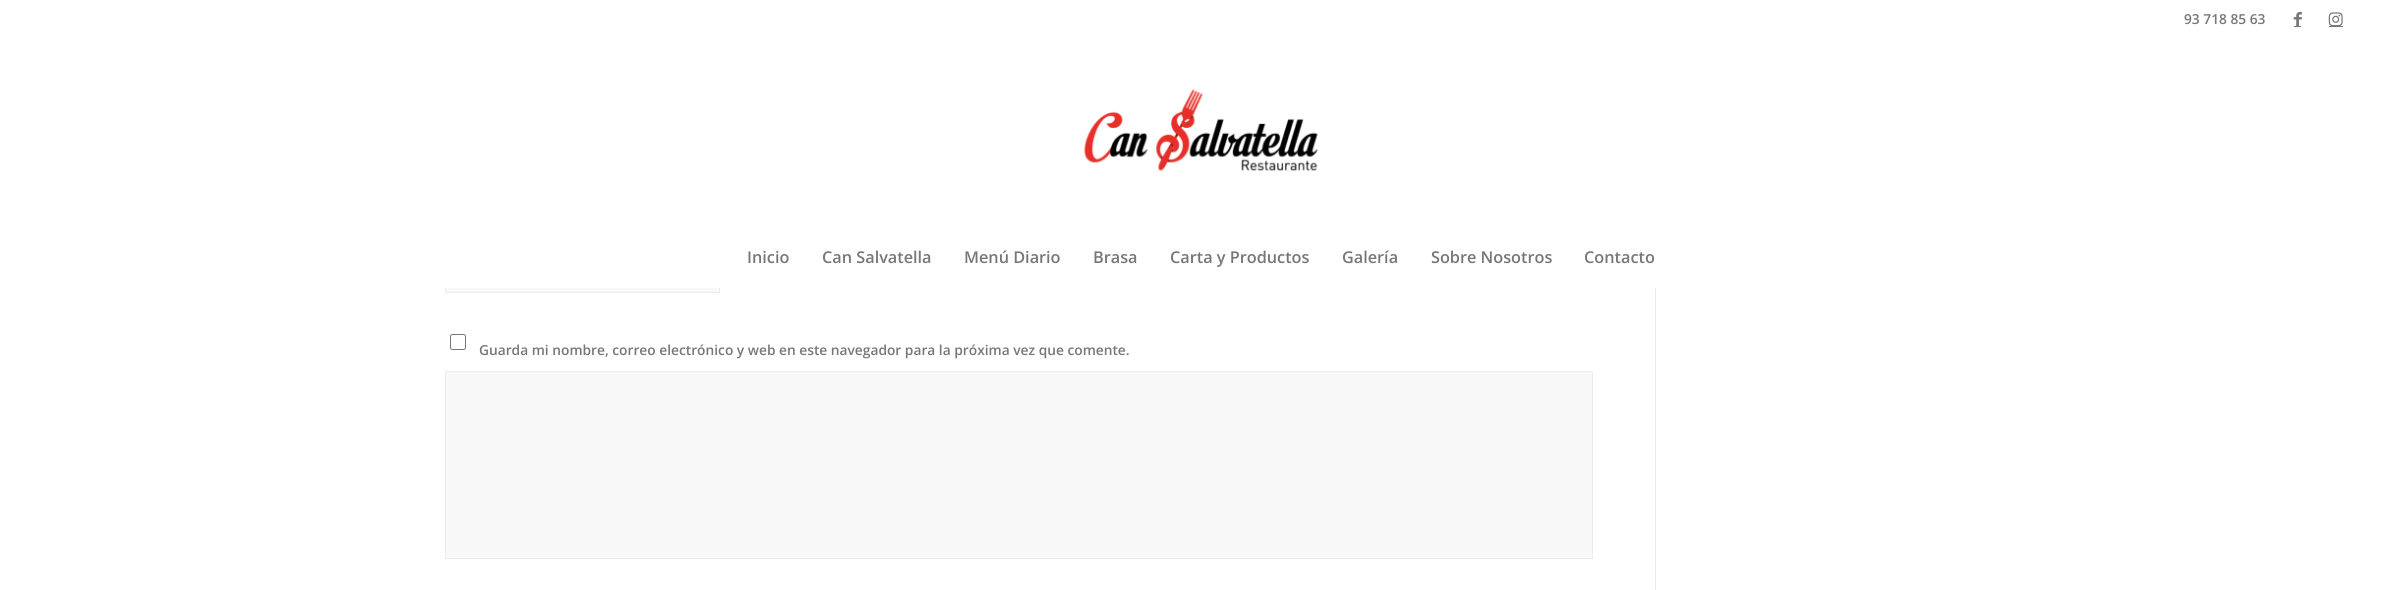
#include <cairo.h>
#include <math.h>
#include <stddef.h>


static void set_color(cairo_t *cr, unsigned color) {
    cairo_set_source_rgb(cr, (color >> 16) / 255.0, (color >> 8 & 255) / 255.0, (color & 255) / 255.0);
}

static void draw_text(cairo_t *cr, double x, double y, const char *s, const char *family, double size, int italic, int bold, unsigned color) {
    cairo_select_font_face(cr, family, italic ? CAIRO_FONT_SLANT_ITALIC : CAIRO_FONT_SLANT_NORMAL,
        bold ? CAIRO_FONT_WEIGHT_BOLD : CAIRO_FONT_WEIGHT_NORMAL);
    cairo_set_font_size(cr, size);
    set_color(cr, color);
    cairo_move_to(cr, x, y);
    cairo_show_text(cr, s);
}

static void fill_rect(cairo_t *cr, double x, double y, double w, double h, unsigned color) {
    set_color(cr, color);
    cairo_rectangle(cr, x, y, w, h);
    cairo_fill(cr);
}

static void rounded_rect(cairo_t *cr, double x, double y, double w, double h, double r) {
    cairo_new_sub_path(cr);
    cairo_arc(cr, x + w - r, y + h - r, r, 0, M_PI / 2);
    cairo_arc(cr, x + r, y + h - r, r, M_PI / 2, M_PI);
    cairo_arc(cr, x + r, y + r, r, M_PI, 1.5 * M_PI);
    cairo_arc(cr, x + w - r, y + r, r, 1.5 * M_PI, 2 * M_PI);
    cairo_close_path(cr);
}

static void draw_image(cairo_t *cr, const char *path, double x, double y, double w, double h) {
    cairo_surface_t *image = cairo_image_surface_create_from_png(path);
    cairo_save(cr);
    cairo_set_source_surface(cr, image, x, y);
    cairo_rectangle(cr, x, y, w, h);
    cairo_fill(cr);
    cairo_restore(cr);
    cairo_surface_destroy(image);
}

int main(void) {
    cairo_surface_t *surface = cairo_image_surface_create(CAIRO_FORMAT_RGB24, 2402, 590);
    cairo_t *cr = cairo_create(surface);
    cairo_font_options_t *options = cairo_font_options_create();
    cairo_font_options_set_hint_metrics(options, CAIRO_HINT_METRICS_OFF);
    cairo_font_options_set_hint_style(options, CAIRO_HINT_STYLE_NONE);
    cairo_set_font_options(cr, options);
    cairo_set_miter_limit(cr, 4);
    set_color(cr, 0xFFFFFF);
    cairo_paint(cr);
    draw_text(cr, 2184, 24, "93 718 85 63", "Open Sans SemiBold", 13.75, 0, 0, 0x787678);
    draw_image(cr, "assets/img1.png", 2293, 12, 9, 14);
    fill_rect(cr, 2294, 26, 7, 1, 0x787678);
    draw_image(cr, "assets/img2.png", 2328, 12, 15, 14);
    fill_rect(cr, 2329, 26, 14, 1, 0x787678);
    fill_rect(cr, 446, 288, 273, 4, 0xF8F8F8);
    cairo_rectangle(cr, 445.5, 251.5, 274, 41);
    set_color(cr, 0xEBEBEB);
    cairo_set_line_width(cr, 1);
    cairo_stroke(cr);
    fill_rect(cr, 445, 251, 275, 37, 0xFFFFFF);
    draw_image(cr, "assets/img3.png", 1084, 89, 234, 82);
    draw_text(cr, 747, 263, "Inicio", "Open Sans SemiBold", 16.25, 0, 0, 0x787678);
    draw_text(cr, 822, 263, "Can Salvatella", "Open Sans SemiBold", 16.25, 0, 0, 0x787678);
    draw_text(cr, 964, 263, "Menú Diario", "Open Sans SemiBold", 16.25, 0, 0, 0x787678);
    draw_text(cr, 1093, 263, "Brasa", "Open Sans SemiBold", 16.25, 0, 0, 0x787678);
    draw_text(cr, 1170, 263, "Carta y Productos", "Open Sans SemiBold", 16.25, 0, 0, 0x787678);
    draw_text(cr, 1342, 263, "Galería", "Open Sans SemiBold", 16.25, 0, 0, 0x787678);
    draw_text(cr, 1431, 263, "Sobre Nosotros", "Open Sans SemiBold", 16.25, 0, 0, 0x787678);
    draw_text(cr, 1584, 263, "Contacto", "Open Sans SemiBold", 16.25, 0, 0, 0x787678);
    fill_rect(cr, 1655, 288, 1, 302, 0xEBEBEB);
    rounded_rect(cr, 450.5, 334.5, 15, 15, 2);
    set_color(cr, 0x767676);
    cairo_stroke(cr);
    draw_text(cr, 479, 355, "Guarda mi nombre, correo electrónico y web en este navegador para la próxima vez que comente.", "Open Sans SemiBold", 13.75, 0, 0, 0x787678);
    set_color(cr, 0xF8F8F8);
    cairo_rectangle(cr, 445.5, 371.5, 1147, 187);
    cairo_fill_preserve(cr);
    set_color(cr, 0xEBEBEB);
    cairo_stroke(cr);
    cairo_surface_write_to_png(surface, "output.png");
    cairo_font_options_destroy(options);
    cairo_destroy(cr);
    cairo_surface_destroy(surface);
    return 0;
}
